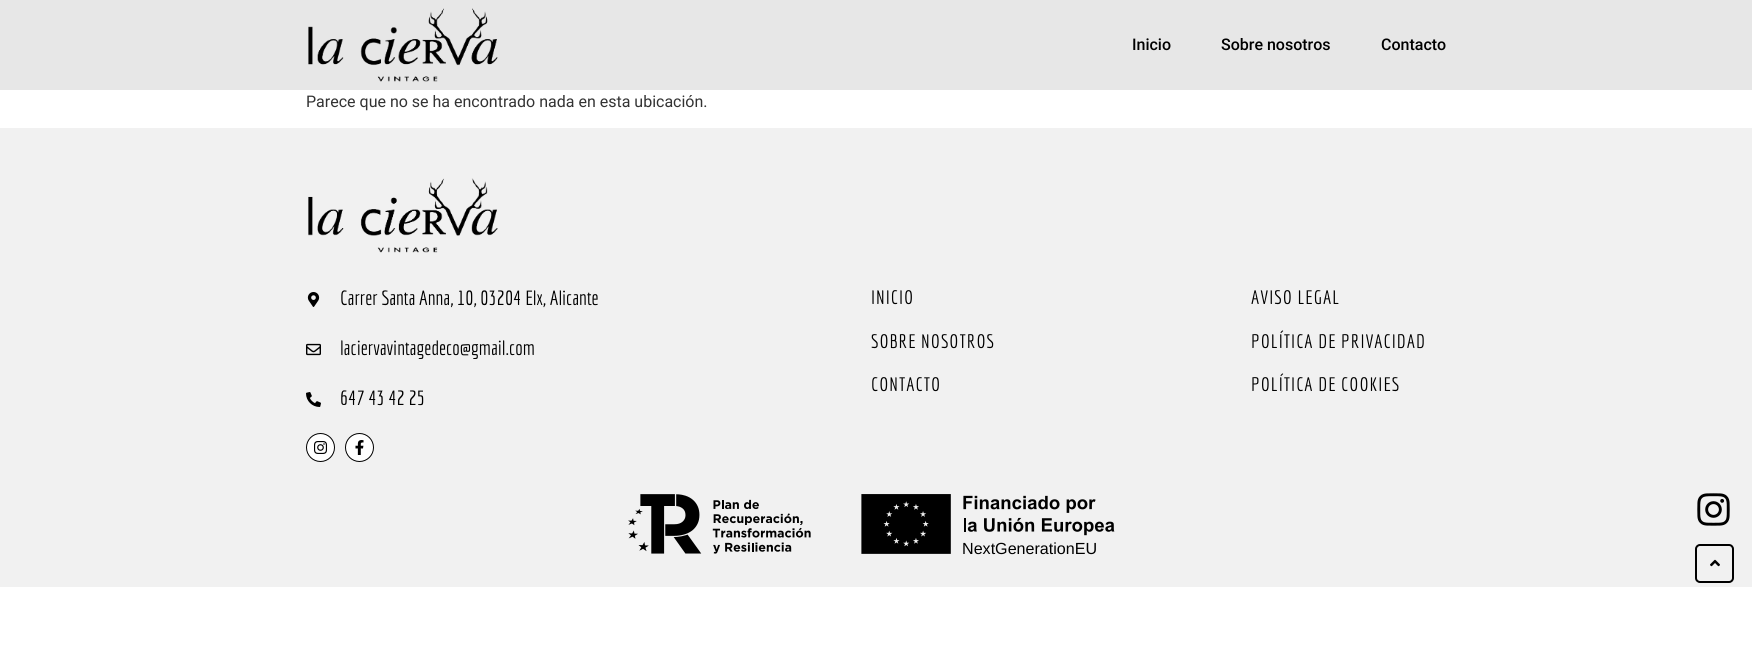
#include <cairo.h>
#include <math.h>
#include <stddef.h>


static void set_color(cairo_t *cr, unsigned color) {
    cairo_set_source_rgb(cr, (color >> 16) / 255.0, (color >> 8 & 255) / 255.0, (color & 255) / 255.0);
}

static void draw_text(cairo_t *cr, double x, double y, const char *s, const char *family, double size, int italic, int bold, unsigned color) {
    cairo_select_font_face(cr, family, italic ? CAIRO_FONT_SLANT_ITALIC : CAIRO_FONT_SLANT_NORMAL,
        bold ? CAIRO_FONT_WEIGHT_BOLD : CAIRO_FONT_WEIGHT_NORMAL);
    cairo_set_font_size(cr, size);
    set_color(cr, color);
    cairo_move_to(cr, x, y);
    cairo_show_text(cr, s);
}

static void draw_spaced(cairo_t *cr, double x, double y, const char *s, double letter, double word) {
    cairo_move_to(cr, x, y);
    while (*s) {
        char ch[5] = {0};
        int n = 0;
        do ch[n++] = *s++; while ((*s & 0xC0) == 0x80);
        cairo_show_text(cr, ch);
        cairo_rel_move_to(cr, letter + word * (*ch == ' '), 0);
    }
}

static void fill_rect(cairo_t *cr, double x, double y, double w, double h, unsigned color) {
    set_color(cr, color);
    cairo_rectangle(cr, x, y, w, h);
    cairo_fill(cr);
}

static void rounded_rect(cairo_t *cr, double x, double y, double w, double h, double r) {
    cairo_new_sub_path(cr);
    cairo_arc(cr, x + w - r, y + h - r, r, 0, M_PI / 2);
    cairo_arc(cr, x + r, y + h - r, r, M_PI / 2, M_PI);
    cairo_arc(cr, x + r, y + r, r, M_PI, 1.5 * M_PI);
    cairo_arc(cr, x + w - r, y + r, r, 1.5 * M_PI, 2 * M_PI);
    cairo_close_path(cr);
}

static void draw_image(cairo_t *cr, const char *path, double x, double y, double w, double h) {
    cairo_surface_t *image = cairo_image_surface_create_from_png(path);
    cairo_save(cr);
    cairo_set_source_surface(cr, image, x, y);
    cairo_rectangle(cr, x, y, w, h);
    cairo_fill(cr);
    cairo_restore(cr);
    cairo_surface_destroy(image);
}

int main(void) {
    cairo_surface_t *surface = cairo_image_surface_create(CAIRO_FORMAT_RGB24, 1752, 655);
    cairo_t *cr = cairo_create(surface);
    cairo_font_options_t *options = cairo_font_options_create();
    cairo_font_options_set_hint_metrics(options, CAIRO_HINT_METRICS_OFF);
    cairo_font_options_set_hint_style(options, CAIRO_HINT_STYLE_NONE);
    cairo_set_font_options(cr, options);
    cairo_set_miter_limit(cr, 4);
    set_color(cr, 0xFFFFFF);
    cairo_paint(cr);
    fill_rect(cr, 0, 0, 1752, 90, 0xE7E7E7);
    draw_image(cr, "assets/img1.png", 308, 8, 190, 74);
    draw_text(cr, 1132, 50, "Inicio", "Roboto Medium", 16, 0, 0, 0x000000);
    draw_text(cr, 1221, 50, "Sobre nosotros", "Roboto Medium", 16, 0, 0, 0x000000);
    draw_text(cr, 1381, 50, "Contacto", "Roboto Medium", 16, 0, 0, 0x000000);
    draw_text(cr, 306, 107, "Parece que no se ha encontrado nada en esta ubicación.", "Roboto", 16, 0, 0, 0x333333);
    fill_rect(cr, 0, 128, 1752, 459, 0xF1F1F1);
    draw_image(cr, "assets/img2.png", 308, 178, 190, 75);
    draw_image(cr, "assets/img3.png", 307, 292, 13, 15);
    draw_text(cr, 340, 305, "Carrer Santa Anna, 10, 03204 Elx, Alicante", "Economica", 20, 0, 0, 0x000000);
    draw_image(cr, "assets/img4.png", 306, 343, 15, 13);
    draw_text(cr, 340, 355, "laciervavintagedeco@gmail.com", "Economica", 20, 0, 0, 0x000000);
    draw_image(cr, "assets/img5.png", 306, 392, 15, 15);
    draw_text(cr, 340, 405, "647 43 42 25", "Economica", 20, 0, 0, 0x000000);
    set_color(cr, 0xFFFFFF);
    cairo_new_path(cr);
    cairo_arc(cr, 320.5, 447.5, 14, 0, 2 * M_PI);
    cairo_fill_preserve(cr);
    set_color(cr, 0x000000);
    cairo_set_line_width(cr, 1);
    cairo_stroke(cr);
    draw_image(cr, "assets/img6.png", 314, 441, 14, 13);
    set_color(cr, 0xFFFFFF);
    cairo_arc(cr, 359.5, 447.5, 14, 0, 2 * M_PI);
    cairo_fill_preserve(cr);
    set_color(cr, 0x000000);
    cairo_stroke(cr);
    draw_image(cr, "assets/img7.png", 355, 440, 9, 15);
    cairo_set_font_size(cr, 19);
    draw_spaced(cr, 871, 304, "INICIO", 1, 0);
    draw_spaced(cr, 871, 348, "SOBRE NOSOTROS", 1, 0);
    draw_spaced(cr, 871, 391, "CONTACTO", 1, 0);
    draw_spaced(cr, 1251, 304, "AVISO LEGAL", 1, 0);
    draw_spaced(cr, 1251, 348, "POLÍTICA DE PRIVACIDAD", 1, 0);
    draw_spaced(cr, 1251, 391, "POLÍTICA DE COOKIES", 1, 0);
    draw_image(cr, "assets/img8.png", 1697, 493, 33, 33);
    draw_image(cr, "assets/img9.png", 628, 494, 183, 60);
    draw_image(cr, "assets/img10.png", 861, 494, 254, 60);
    draw_text(cr, 962, 554, "NextGenerationEU", "Liberation Sans", 16.1, 0, 0, 0x000000);
    rounded_rect(cr, 1696, 545, 37, 37, 4);
    cairo_set_line_width(cr, 2);
    cairo_stroke(cr);
    draw_image(cr, "assets/img11.png", 1710, 559, 10, 8);
    cairo_surface_write_to_png(surface, "output.png");
    cairo_font_options_destroy(options);
    cairo_destroy(cr);
    cairo_surface_destroy(surface);
    return 0;
}
